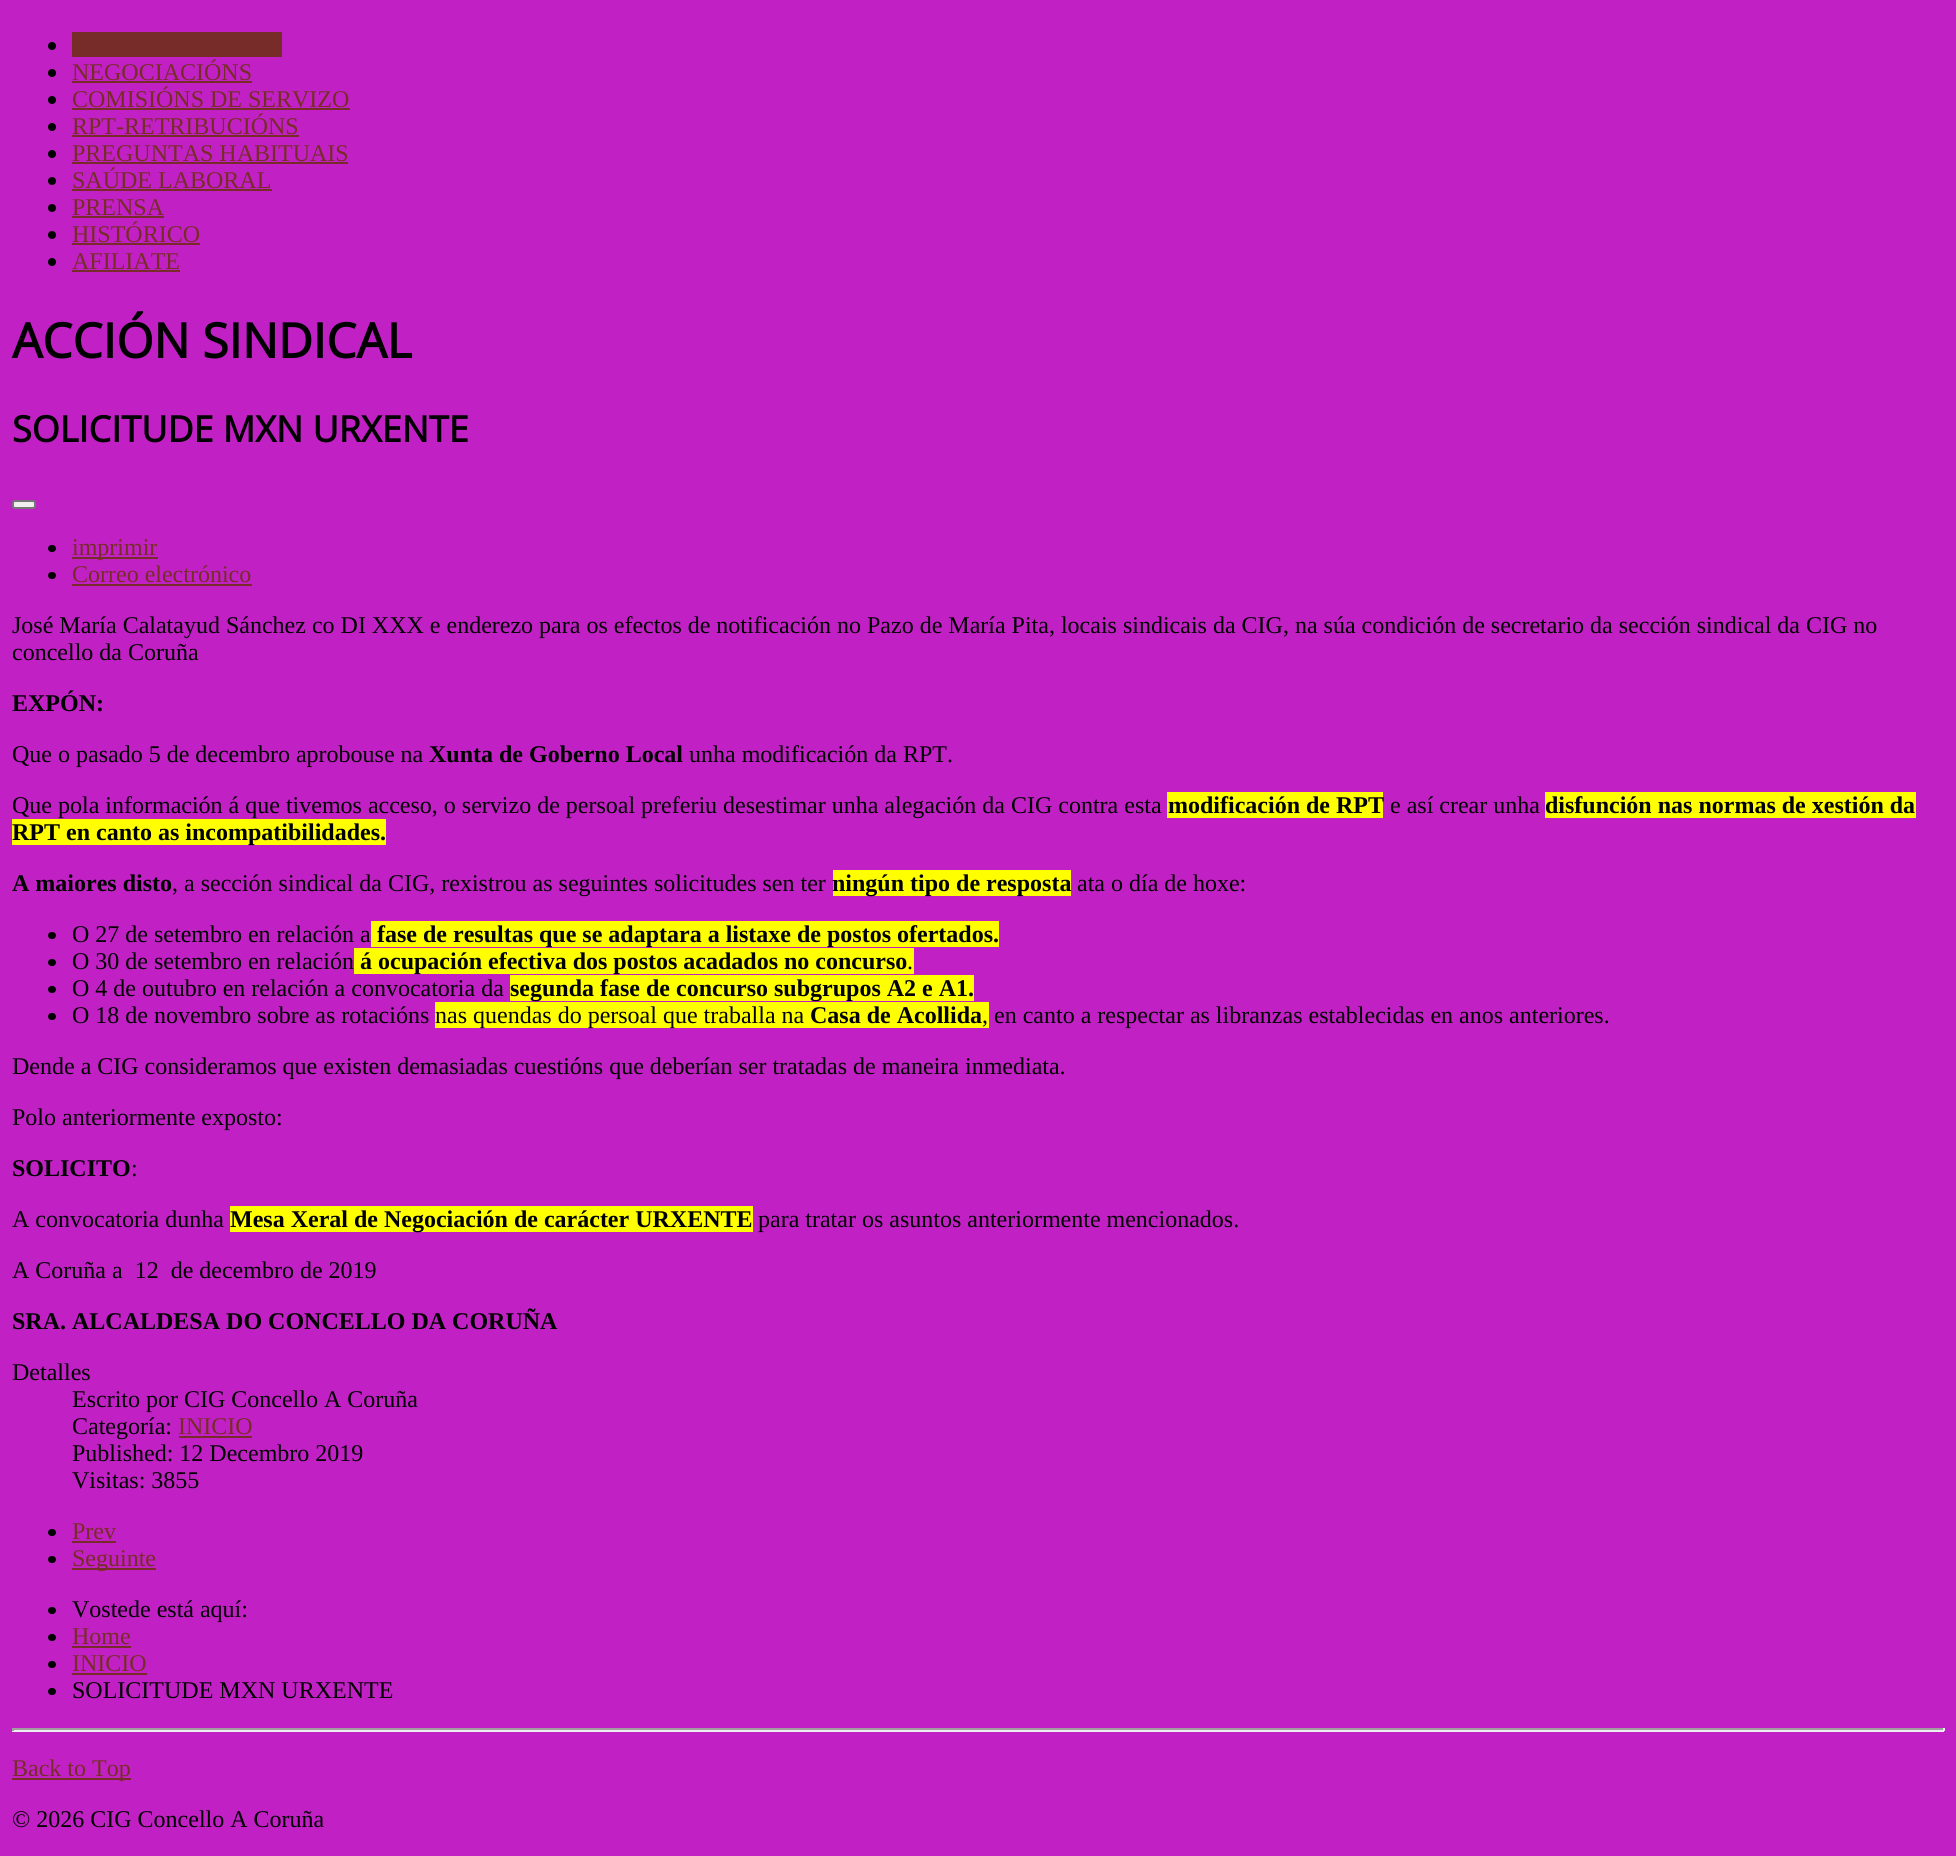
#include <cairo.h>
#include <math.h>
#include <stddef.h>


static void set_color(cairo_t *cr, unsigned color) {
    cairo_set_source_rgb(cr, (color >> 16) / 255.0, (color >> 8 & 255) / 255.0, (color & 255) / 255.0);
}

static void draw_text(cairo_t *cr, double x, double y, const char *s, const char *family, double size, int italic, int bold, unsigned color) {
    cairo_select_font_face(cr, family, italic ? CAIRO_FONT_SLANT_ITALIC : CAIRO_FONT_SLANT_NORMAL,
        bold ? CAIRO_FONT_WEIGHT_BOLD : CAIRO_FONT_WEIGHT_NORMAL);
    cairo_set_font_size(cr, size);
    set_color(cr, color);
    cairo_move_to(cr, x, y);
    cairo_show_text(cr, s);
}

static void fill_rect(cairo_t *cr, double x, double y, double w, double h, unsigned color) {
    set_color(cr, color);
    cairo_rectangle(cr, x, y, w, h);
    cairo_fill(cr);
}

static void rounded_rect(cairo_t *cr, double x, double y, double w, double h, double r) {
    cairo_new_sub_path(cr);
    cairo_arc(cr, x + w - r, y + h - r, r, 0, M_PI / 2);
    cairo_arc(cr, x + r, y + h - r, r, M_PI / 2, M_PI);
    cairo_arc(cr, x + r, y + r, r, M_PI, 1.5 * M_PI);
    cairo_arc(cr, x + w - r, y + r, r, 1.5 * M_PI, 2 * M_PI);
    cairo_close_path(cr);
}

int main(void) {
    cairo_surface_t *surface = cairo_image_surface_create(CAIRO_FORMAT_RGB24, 1956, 1856);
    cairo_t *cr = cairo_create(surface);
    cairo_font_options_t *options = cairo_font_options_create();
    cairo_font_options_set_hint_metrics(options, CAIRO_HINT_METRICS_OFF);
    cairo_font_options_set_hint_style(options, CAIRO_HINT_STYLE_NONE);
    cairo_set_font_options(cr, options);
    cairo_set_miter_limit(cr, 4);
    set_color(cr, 0xC121C4);
    cairo_paint(cr);
    set_color(cr, 0x000000);
    cairo_arc(cr, 52, 46, 4, 0, 2 * M_PI);
    cairo_fill(cr);
    fill_rect(cr, 72, 32, 210, 25, 0x782C29);
    set_color(cr, 0x000000);
    cairo_arc(cr, 52, 73, 4, 0, 2 * M_PI);
    cairo_fill(cr);
    draw_text(cr, 72, 80, "NEGOCIACIÓNS", "Liberation Serif", 24, 0, 0, 0x782C29);
    fill_rect(cr, 72, 81, 180, 2, 0x782C29);
    set_color(cr, 0x000000);
    cairo_new_path(cr);
    cairo_arc(cr, 52, 100, 4, 0, 2 * M_PI);
    cairo_fill(cr);
    draw_text(cr, 72, 107, "COMISIÓNS DE SERVIZO", "Liberation Serif", 24, 0, 0, 0x782C29);
    fill_rect(cr, 72, 108, 278, 2, 0x782C29);
    set_color(cr, 0x000000);
    cairo_new_path(cr);
    cairo_arc(cr, 52, 127, 4, 0, 2 * M_PI);
    cairo_fill(cr);
    draw_text(cr, 72, 134, "RPT-RETRIBUCIÓNS", "Liberation Serif", 24, 0, 0, 0x782C29);
    fill_rect(cr, 72, 135, 227, 2, 0x782C29);
    set_color(cr, 0x000000);
    cairo_new_path(cr);
    cairo_arc(cr, 52, 154, 4, 0, 2 * M_PI);
    cairo_fill(cr);
    draw_text(cr, 72, 161, "PREGUNTAS HABITUAIS", "Liberation Serif", 24, 0, 0, 0x782C29);
    fill_rect(cr, 72, 162, 276, 2, 0x782C29);
    set_color(cr, 0x000000);
    cairo_new_path(cr);
    cairo_arc(cr, 52, 181, 4, 0, 2 * M_PI);
    cairo_fill(cr);
    draw_text(cr, 72, 188, "SAÚDE LABORAL", "Liberation Serif", 24, 0, 0, 0x782C29);
    fill_rect(cr, 72, 189, 200, 2, 0x782C29);
    set_color(cr, 0x000000);
    cairo_new_path(cr);
    cairo_arc(cr, 52, 208, 4, 0, 2 * M_PI);
    cairo_fill(cr);
    draw_text(cr, 72, 215, "PRENSA", "Liberation Serif", 24, 0, 0, 0x782C29);
    fill_rect(cr, 72, 216, 92, 2, 0x782C29);
    set_color(cr, 0x000000);
    cairo_new_path(cr);
    cairo_arc(cr, 52, 235, 4, 0, 2 * M_PI);
    cairo_fill(cr);
    draw_text(cr, 72, 242, "HISTÓRICO", "Liberation Serif", 24, 0, 0, 0x782C29);
    fill_rect(cr, 72, 243, 128, 2, 0x782C29);
    set_color(cr, 0x000000);
    cairo_new_path(cr);
    cairo_arc(cr, 52, 262, 4, 0, 2 * M_PI);
    cairo_fill(cr);
    draw_text(cr, 72, 269, "AFILIATE", "Liberation Serif", 24, 0, 0, 0x782C29);
    fill_rect(cr, 72, 270, 108, 2, 0x782C29);
    draw_text(cr, 12, 358, "ACCIÓN SINDICAL", "Open Sans", 48, 0, 1, 0x000000);
    draw_text(cr, 12, 442, "SOLICITUDE MXN URXENTE", "Open Sans", 36, 0, 1, 0x000000);
    set_color(cr, 0xEFEFEF);
    rounded_rect(cr, 13, 501, 22, 7, 2);
    cairo_fill_preserve(cr);
    set_color(cr, 0x767676);
    cairo_stroke(cr);
    set_color(cr, 0x000000);
    rounded_rect(cr, 48, 545, 8, 7, 3.5);
    cairo_fill(cr);
    fill_rect(cr, 72, 557, 86, 2, 0x782C29);
    draw_text(cr, 72, 555, "imprimir", "Liberation Serif", 24, 0, 0, 0x782C29);
    set_color(cr, 0x000000);
    rounded_rect(cr, 48, 572, 8, 7, 3.5);
    cairo_fill(cr);
    draw_text(cr, 72, 582, "Correo electrónico", "Liberation Serif", 24, 0, 0, 0x782C29);
    fill_rect(cr, 72, 584, 180, 2, 0x782C29);
    draw_text(cr, 12, 633, "José María Calatayud Sánchez co DI XXX e enderezo para os efectos de notificación no Pazo de María Pita, locais sindicais da CIG, na súa condición de secretario da sección sindical da CIG no", "Liberation Serif", 24, 0, 0, 0x000000);
    draw_text(cr, 12, 660, "concello da Coruña", "Liberation Serif", 24, 0, 0, 0x000000);
    draw_text(cr, 12, 711, "EXPÓN:", "Liberation Serif", 24, 0, 1, 0x000000);
    draw_text(cr, 12, 762, "Que o pasado 5 de decembro aprobouse na", "Liberation Serif", 24, 0, 0, 0x000000);
    draw_text(cr, 429, 762, "Xunta de Goberno Local", "Liberation Serif", 24, 0, 1, 0x000000);
    draw_text(cr, 689, 762, "unha modificación da RPT.", "Liberation Serif", 24, 0, 0, 0x000000);
    draw_text(cr, 12, 813, "Que pola información á que tivemos acceso, o servizo de persoal preferiu desestimar unha alegación da CIG contra esta", "Liberation Serif", 24, 0, 0, 0x000000);
    fill_rect(cr, 1167, 792, 216, 26, 0xFFFF00);
    draw_text(cr, 1168, 813, "modificación de RPT", "Liberation Serif", 24, 0, 1, 0x000000);
    draw_text(cr, 1390, 813, "e así crear unha", "Liberation Serif", 24, 0, 0, 0x000000);
    fill_rect(cr, 1545, 792, 371, 26, 0xFFFF00);
    draw_text(cr, 1545, 813, "disfunción nas normas de xestión da", "Liberation Serif", 24, 0, 1, 0x000000);
    fill_rect(cr, 12, 819, 374, 26, 0xFFFF00);
    draw_text(cr, 12, 840, "RPT en canto as incompatibilidades.", "Liberation Serif", 24, 0, 1, 0x000000);
    draw_text(cr, 12, 891, "A maiores disto", "Liberation Serif", 24, 0, 1, 0x000000);
    draw_text(cr, 172, 891, ", a sección sindical da CIG, rexistrou as seguintes solicitudes sen ter", "Liberation Serif", 24, 0, 0, 0x000000);
    fill_rect(cr, 833, 870, 238, 26, 0xFFFF00);
    draw_text(cr, 832, 891, "ningún tipo de resposta", "Liberation Serif", 24, 0, 1, 0x000000);
    draw_text(cr, 1077, 891, "ata o día de hoxe:", "Liberation Serif", 24, 0, 0, 0x000000);
    rounded_rect(cr, 48, 932, 8, 7, 3.5);
    cairo_fill(cr);
    draw_text(cr, 72, 942, "O 27 de setembro en relación a", "Liberation Serif", 24, 0, 0, 0x000000);
    fill_rect(cr, 371, 921, 628, 26, 0xFFFF00);
    draw_text(cr, 377, 942, "fase de resultas que se adaptara a listaxe de postos ofertados.", "Liberation Serif", 24, 0, 1, 0x000000);
    rounded_rect(cr, 48, 959, 8, 7, 3.5);
    cairo_fill(cr);
    draw_text(cr, 72, 969, "O 30 de setembro en relación", "Liberation Serif", 24, 0, 0, 0x000000);
    fill_rect(cr, 354, 948, 560, 26, 0xFFFF00);
    draw_text(cr, 360, 969, "á ocupación efectiva dos postos acadados no concurso", "Liberation Serif", 24, 0, 1, 0x000000);
    draw_text(cr, 907, 969, ".", "Liberation Serif", 24, 0, 0, 0x000000);
    rounded_rect(cr, 48, 986, 8, 7, 3.5);
    cairo_fill(cr);
    draw_text(cr, 72, 996, "O 4 de outubro en relación a convocatoria da", "Liberation Serif", 24, 0, 0, 0x000000);
    fill_rect(cr, 510, 975, 464, 26, 0xFFFF00);
    draw_text(cr, 510, 996, "segunda fase de concurso subgrupos A2 e A1.", "Liberation Serif", 24, 0, 1, 0x000000);
    rounded_rect(cr, 48, 1013, 8, 7, 3.5);
    cairo_fill(cr);
    draw_text(cr, 72, 1023, "O 18 de novembro sobre as rotacións", "Liberation Serif", 24, 0, 0, 0x000000);
    fill_rect(cr, 435, 1002, 554, 26, 0xFFFF00);
    draw_text(cr, 435, 1023, "nas quendas do persoal que traballa na", "Liberation Serif", 24, 0, 0, 0x000000);
    draw_text(cr, 810, 1023, "Casa de Acollida", "Liberation Serif", 24, 0, 1, 0x000000);
    draw_text(cr, 982, 1023, ", en canto a respectar as libranzas establecidas en anos anteriores.", "Liberation Serif", 24, 0, 0, 0x000000);
    draw_text(cr, 12, 1074, "Dende a CIG consideramos que existen demasiadas cuestións que deberían ser tratadas de maneira inmediata.", "Liberation Serif", 24, 0, 0, 0x000000);
    draw_text(cr, 12, 1125, "Polo anteriormente exposto:", "Liberation Serif", 24, 0, 0, 0x000000);
    draw_text(cr, 12, 1176, "SOLICITO", "Liberation Serif", 24, 0, 1, 0x000000);
    draw_text(cr, 131, 1176, ":", "Liberation Serif", 24, 0, 0, 0x000000);
    draw_text(cr, 12, 1227, "A convocatoria dunha", "Liberation Serif", 24, 0, 0, 0x000000);
    fill_rect(cr, 230, 1206, 523, 26, 0xFFFF00);
    draw_text(cr, 230, 1227, "Mesa Xeral de Negociación de carácter URXENTE", "Liberation Serif", 24, 0, 1, 0x000000);
    draw_text(cr, 758, 1227, "para tratar os asuntos anteriormente mencionados.", "Liberation Serif", 24, 0, 0, 0x000000);
    draw_text(cr, 12, 1278, "A Coruña a  12  de decembro de 2019", "Liberation Serif", 24, 0, 0, 0x000000);
    draw_text(cr, 12, 1329, "SRA. ALCALDESA DO CONCELLO DA CORUÑA", "Liberation Serif", 24, 0, 1, 0x000000);
    draw_text(cr, 12, 1380, "Detalles", "Liberation Serif", 24, 0, 0, 0x000000);
    draw_text(cr, 72, 1407, "Escrito por CIG Concello A Coruña", "Liberation Serif", 24, 0, 0, 0x000000);
    draw_text(cr, 72, 1434, "Categoría:", "Liberation Serif", 24, 0, 0, 0x000000);
    draw_text(cr, 178, 1434, "INICIO", "Liberation Serif", 24, 0, 0, 0x782C29);
    fill_rect(cr, 179, 1436, 73, 2, 0x782C29);
    draw_text(cr, 72, 1461, "Published: 12 Decembro 2019", "Liberation Serif", 24, 0, 0, 0x000000);
    draw_text(cr, 72, 1488, "Visitas: 3855", "Liberation Serif", 24, 0, 0, 0x000000);
    rounded_rect(cr, 48, 1529, 8, 7, 3.5);
    cairo_fill(cr);
    draw_text(cr, 72, 1539, "Prev", "Liberation Serif", 24, 0, 0, 0x782C29);
    fill_rect(cr, 72, 1541, 44, 2, 0x782C29);
    set_color(cr, 0x000000);
    rounded_rect(cr, 48, 1556, 8, 7, 3.5);
    cairo_fill(cr);
    fill_rect(cr, 72, 1568, 84, 2, 0x782C29);
    draw_text(cr, 72, 1566, "Seguinte", "Liberation Serif", 24, 0, 0, 0x782C29);
    set_color(cr, 0x000000);
    rounded_rect(cr, 48, 1607, 8, 7, 3.5);
    cairo_fill(cr);
    draw_text(cr, 72, 1617, "Vostede está aquí:", "Liberation Serif", 24, 0, 0, 0x000000);
    rounded_rect(cr, 48, 1634, 8, 7, 3.5);
    cairo_fill(cr);
    draw_text(cr, 72, 1644, "Home", "Liberation Serif", 24, 0, 0, 0x782C29);
    fill_rect(cr, 72, 1646, 59, 2, 0x782C29);
    set_color(cr, 0x000000);
    rounded_rect(cr, 48, 1661, 8, 7, 3.5);
    cairo_fill(cr);
    draw_text(cr, 72, 1671, "INICIO", "Liberation Serif", 24, 0, 0, 0x782C29);
    fill_rect(cr, 72, 1673, 75, 2, 0x782C29);
    set_color(cr, 0x000000);
    rounded_rect(cr, 48, 1688, 8, 7, 3.5);
    cairo_fill(cr);
    draw_text(cr, 72, 1698, "SOLICITUDE MXN URXENTE", "Liberation Serif", 24, 0, 0, 0x000000);
    fill_rect(cr, 12, 1728, 1932, 2, 0x9F9F9F);
    fill_rect(cr, 1943, 1728, 2, 3, 0xEEEEEE);
    fill_rect(cr, 12, 1730, 1932, 2, 0xEEEEEE);
    fill_rect(cr, 12, 1728, 2, 3, 0x9F9F9F);
    fill_rect(cr, 12, 1778, 119, 2, 0x782C29);
    draw_text(cr, 12, 1776, "Back to Top", "Liberation Serif", 24, 0, 0, 0x782C29);
    draw_text(cr, 12, 1827, "© 2026 CIG Concello A Coruña", "Liberation Serif", 24, 0, 0, 0x000000);
    cairo_surface_write_to_png(surface, "output.png");
    cairo_font_options_destroy(options);
    cairo_destroy(cr);
    cairo_surface_destroy(surface);
    return 0;
}
